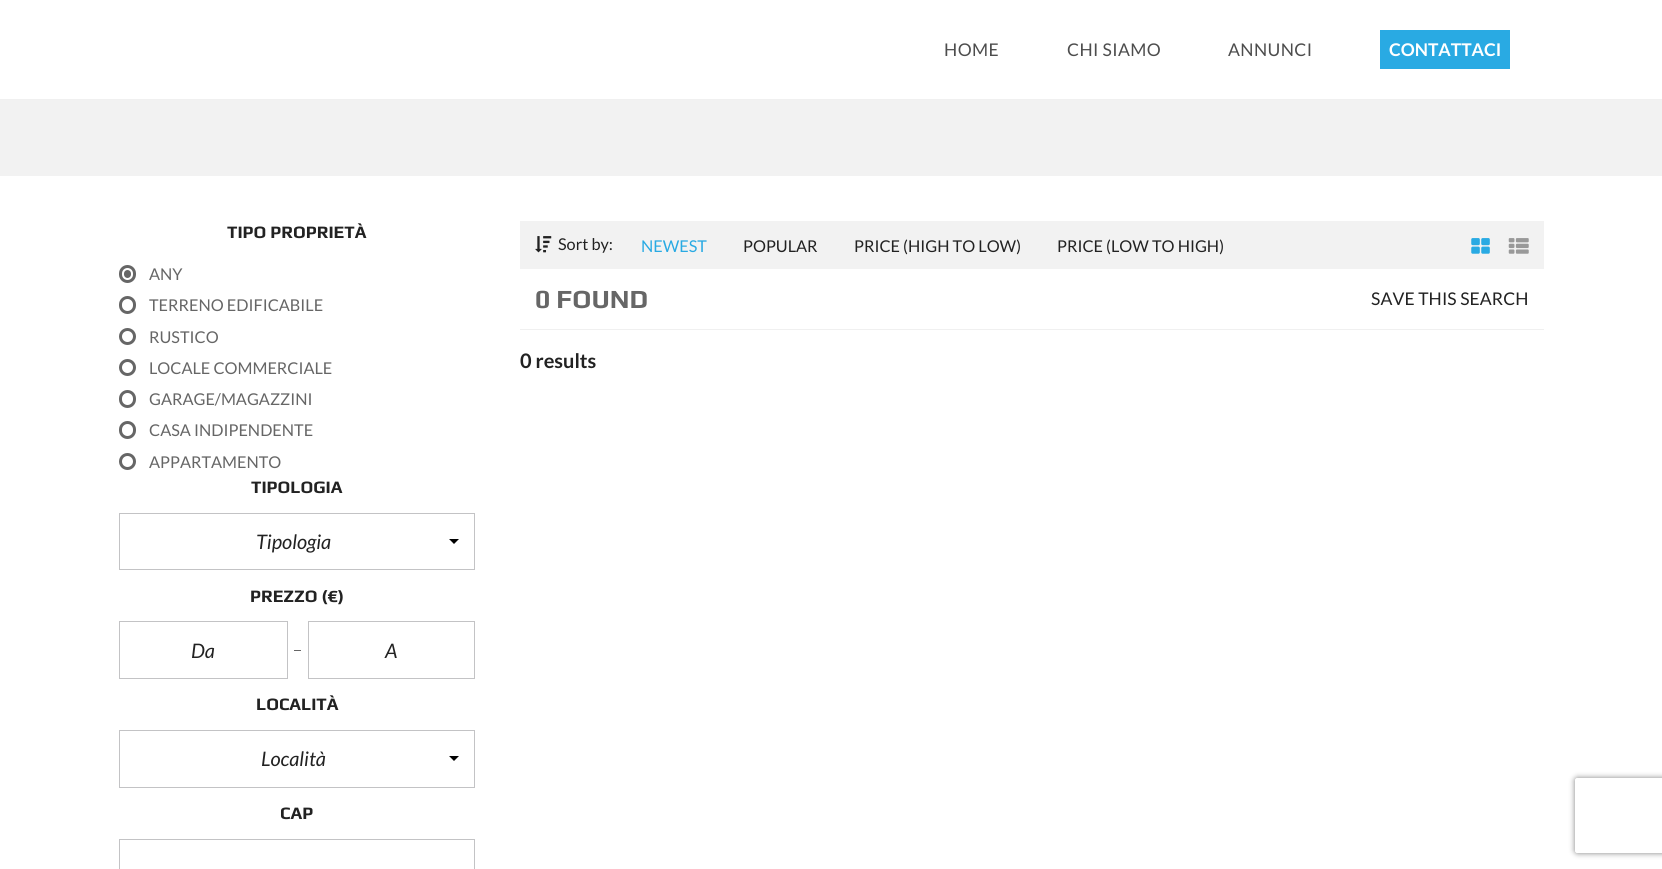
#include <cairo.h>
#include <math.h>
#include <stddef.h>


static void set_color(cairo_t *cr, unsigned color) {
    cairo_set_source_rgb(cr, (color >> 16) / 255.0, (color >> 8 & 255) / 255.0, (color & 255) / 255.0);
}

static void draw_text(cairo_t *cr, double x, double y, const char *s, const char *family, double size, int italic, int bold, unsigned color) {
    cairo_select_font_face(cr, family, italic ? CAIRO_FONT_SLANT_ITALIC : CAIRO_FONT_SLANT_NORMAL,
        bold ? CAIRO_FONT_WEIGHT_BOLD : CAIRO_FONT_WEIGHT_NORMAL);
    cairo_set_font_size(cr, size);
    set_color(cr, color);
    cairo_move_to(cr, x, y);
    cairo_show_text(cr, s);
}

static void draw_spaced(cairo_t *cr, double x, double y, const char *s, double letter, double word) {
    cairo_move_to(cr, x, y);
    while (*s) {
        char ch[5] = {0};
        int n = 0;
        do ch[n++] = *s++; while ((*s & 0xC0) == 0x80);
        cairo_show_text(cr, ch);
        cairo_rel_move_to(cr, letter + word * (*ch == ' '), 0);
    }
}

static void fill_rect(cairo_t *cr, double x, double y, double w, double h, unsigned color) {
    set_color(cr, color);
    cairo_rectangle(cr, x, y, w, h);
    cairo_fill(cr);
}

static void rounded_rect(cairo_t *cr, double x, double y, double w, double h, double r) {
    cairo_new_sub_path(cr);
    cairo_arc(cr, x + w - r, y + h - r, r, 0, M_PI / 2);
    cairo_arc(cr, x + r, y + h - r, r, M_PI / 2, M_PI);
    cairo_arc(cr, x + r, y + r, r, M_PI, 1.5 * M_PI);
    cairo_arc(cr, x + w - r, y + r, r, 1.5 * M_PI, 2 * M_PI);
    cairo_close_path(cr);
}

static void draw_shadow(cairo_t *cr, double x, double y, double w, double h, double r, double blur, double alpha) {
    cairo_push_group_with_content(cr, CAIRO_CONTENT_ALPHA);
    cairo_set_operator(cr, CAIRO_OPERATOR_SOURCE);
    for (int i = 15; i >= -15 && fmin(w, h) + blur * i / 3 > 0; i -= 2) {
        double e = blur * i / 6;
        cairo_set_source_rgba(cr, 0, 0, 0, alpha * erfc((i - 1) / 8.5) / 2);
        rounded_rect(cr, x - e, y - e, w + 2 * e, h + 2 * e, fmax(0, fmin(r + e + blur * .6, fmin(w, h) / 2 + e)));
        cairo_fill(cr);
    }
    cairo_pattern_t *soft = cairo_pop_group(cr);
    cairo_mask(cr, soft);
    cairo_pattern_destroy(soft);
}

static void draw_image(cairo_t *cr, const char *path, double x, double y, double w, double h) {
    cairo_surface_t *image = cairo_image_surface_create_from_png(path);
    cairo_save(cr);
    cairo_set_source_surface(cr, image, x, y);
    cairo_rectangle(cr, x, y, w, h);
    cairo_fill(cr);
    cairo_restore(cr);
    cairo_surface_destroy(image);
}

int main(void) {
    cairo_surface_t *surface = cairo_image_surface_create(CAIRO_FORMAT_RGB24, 1662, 869);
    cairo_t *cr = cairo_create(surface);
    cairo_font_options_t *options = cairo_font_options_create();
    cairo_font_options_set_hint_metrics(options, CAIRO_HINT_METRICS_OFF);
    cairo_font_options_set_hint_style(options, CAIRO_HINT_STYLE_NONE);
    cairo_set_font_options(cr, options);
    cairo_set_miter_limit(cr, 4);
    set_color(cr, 0xFFFFFF);
    cairo_paint(cr);
    cairo_select_font_face(cr, "Lato", CAIRO_FONT_SLANT_NORMAL, CAIRO_FONT_WEIGHT_NORMAL);
    cairo_set_font_size(cr, 17.5);
    set_color(cr, 0x4D4D4D);
    draw_spaced(cr, 944, 56, "HOME", 0.4, 0);
    draw_spaced(cr, 1067, 56, "CHI SIAMO", 0.4, 0);
    draw_spaced(cr, 1228, 56, "ANNUNCI", 0.4, 0);
    fill_rect(cr, 1380, 30, 130, 39, 0x29AAE3);
    draw_text(cr, 1389, 56, "CONTATTACI", "Lato", 17.5, 0, 1, 0xFFFFFF);
    fill_rect(cr, 0, 99, 1662, 1, 0xF0F0F0);
    fill_rect(cr, 0, 100, 1662, 76, 0xF2F2F2);
    draw_text(cr, 227, 238, "TIPO PROPRIETÀ", "Play", 17.5, 0, 1, 0x222222);
    set_color(cr, 0x666666);
    rounded_rect(cr, 124, 270, 7, 8, 3.5);
    cairo_fill(cr);
    rounded_rect(cr, 120.5, 266.5, 14, 15, 7);
    cairo_set_line_width(cr, 3);
    cairo_stroke(cr);
    draw_text(cr, 149, 280, "ANY", "Lato", 16.25, 0, 0, 0x666666);
    rounded_rect(cr, 120.5, 297.5, 14, 15, 7);
    cairo_stroke(cr);
    draw_text(cr, 149, 311, "TERRENO EDIFICABILE", "Lato", 16.25, 0, 0, 0x666666);
    cairo_new_path(cr);
    cairo_arc(cr, 127.5, 336.5, 7, 0, 2 * M_PI);
    cairo_stroke(cr);
    draw_text(cr, 149, 343, "RUSTICO", "Lato", 16.25, 0, 0, 0x666666);
    cairo_new_path(cr);
    cairo_arc(cr, 127.5, 367.5, 7, 0, 2 * M_PI);
    cairo_stroke(cr);
    draw_text(cr, 149, 374, "LOCALE COMMERCIALE", "Lato", 16.25, 0, 0, 0x666666);
    rounded_rect(cr, 120.5, 391.5, 14, 15, 7);
    cairo_stroke(cr);
    draw_text(cr, 149, 405, "GARAGE/MAGAZZINI", "Lato", 16.25, 0, 0, 0x666666);
    rounded_rect(cr, 120.5, 422.5, 14, 15, 7);
    cairo_stroke(cr);
    draw_text(cr, 149, 436, "CASA INDIPENDENTE", "Lato", 16.25, 0, 0, 0x666666);
    cairo_new_path(cr);
    cairo_arc(cr, 127.5, 461.5, 7, 0, 2 * M_PI);
    cairo_stroke(cr);
    draw_text(cr, 149, 468, "APPARTAMENTO", "Lato", 16.25, 0, 0, 0x666666);
    draw_text(cr, 251, 493, "TIPOLOGIA", "Play", 17.5, 0, 1, 0x222222);
    cairo_rectangle(cr, 119.5, 513.5, 355, 56);
    set_color(cr, 0xC3C3C5);
    cairo_set_line_width(cr, 1);
    cairo_stroke(cr);
    draw_text(cr, 256, 549, "Tipologia", "Lato", 20, 1, 0, 0x222222);
    set_color(cr, 0x000000);
    cairo_new_path(cr);
    cairo_move_to(cr, 449, 539);
    cairo_line_to(cr, 459, 539);
    cairo_line_to(cr, 454, 544);
    cairo_close_path(cr);
    cairo_fill(cr);
    draw_text(cr, 250, 602, "PREZZO (€)", "Play", 17.5, 0, 1, 0x222222);
    cairo_rectangle(cr, 119.5, 621.5, 168, 57);
    set_color(cr, 0xC3C3C5);
    cairo_stroke(cr);
    draw_text(cr, 191, 658, "Da", "Lato", 20, 1, 0, 0x222222);
    fill_rect(cr, 294, 650, 7, 1, 0x666666);
    cairo_rectangle(cr, 308.5, 621.5, 166, 57);
    set_color(cr, 0xC3C3C5);
    cairo_stroke(cr);
    draw_text(cr, 385, 658, "A", "Lato", 20, 1, 0, 0x222222);
    draw_text(cr, 256, 710, "LOCALITÀ", "Play", 17.5, 0, 1, 0x222222);
    cairo_rectangle(cr, 119.5, 730.5, 355, 57);
    set_color(cr, 0xC3C3C5);
    cairo_stroke(cr);
    draw_text(cr, 261, 766, "Località", "Lato", 20, 1, 0, 0x222222);
    set_color(cr, 0x000000);
    cairo_new_path(cr);
    cairo_move_to(cr, 449, 756);
    cairo_line_to(cr, 459, 756);
    cairo_line_to(cr, 454, 761);
    cairo_close_path(cr);
    cairo_fill(cr);
    draw_text(cr, 280, 819, "CAP", "Play", 17.5, 0, 1, 0x222222);
    cairo_rectangle(cr, 119.5, 839.5, 355, 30);
    set_color(cr, 0xC3C3C5);
    cairo_stroke(cr);
    fill_rect(cr, 520, 221, 1024, 48, 0xF2F2F2);
    draw_image(cr, "assets/img1.png", 535, 236, 17, 17);
    draw_text(cr, 558, 250, "Sort by:", "Lato", 16.25, 0, 0, 0x222222);
    draw_text(cr, 641, 252, "NEWEST", "Lato", 16.25, 0, 0, 0x29AAE3);
    draw_text(cr, 743, 252, "POPULAR", "Lato", 16.25, 0, 0, 0x222222);
    draw_text(cr, 854, 252, "PRICE (HIGH TO LOW)", "Lato", 16.25, 0, 0, 0x222222);
    draw_text(cr, 1057, 252, "PRICE (LOW TO HIGH)", "Lato", 16.25, 0, 0, 0x222222);
    draw_image(cr, "assets/img2.png", 1471, 238, 19, 16);
    draw_image(cr, "assets/img3.png", 1508, 238, 21, 16);
    draw_text(cr, 535, 308, "0 FOUND", "Play", 26.25, 0, 1, 0x666666);
    cairo_select_font_face(cr, "Lato", CAIRO_FONT_SLANT_NORMAL, CAIRO_FONT_WEIGHT_NORMAL);
    cairo_set_font_size(cr, 17.5);
    set_color(cr, 0x222222);
    draw_spaced(cr, 1371, 305, "SAVE THIS SEARCH", 0.1, 0);
    fill_rect(cr, 520, 329, 1024, 1, 0xF0F0F0);
    draw_text(cr, 520, 368, "0 results", "Lato", 20, 0, 1, 0x222222);
    cairo_save(cr);
    cairo_set_fill_rule(cr, CAIRO_FILL_RULE_EVEN_ODD);
    cairo_new_path(cr);
    cairo_move_to(cr, 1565, 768);
    cairo_line_to(cr, 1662, 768);
    cairo_line_to(cr, 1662, 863);
    cairo_line_to(cr, 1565, 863);
    cairo_close_path(cr);
    cairo_move_to(cr, 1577.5, 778);
    cairo_line_to(cr, 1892.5, 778);
    cairo_curve_to(cr, 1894, 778, 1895, 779, 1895, 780.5);
    cairo_line_to(cr, 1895, 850.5);
    cairo_curve_to(cr, 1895, 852, 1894, 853, 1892.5, 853);
    cairo_line_to(cr, 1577.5, 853);
    cairo_curve_to(cr, 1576, 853, 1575, 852, 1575, 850.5);
    cairo_line_to(cr, 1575, 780.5);
    cairo_curve_to(cr, 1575, 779, 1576, 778, 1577.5, 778);
    cairo_close_path(cr);
    cairo_clip(cr);
    set_color(cr, 0x808080);
    draw_shadow(cr, 1575, 778, 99, 75, 2.5, 3, 1);
    cairo_restore(cr);
    cairo_surface_write_to_png(surface, "output.png");
    cairo_font_options_destroy(options);
    cairo_destroy(cr);
    cairo_surface_destroy(surface);
    return 0;
}
